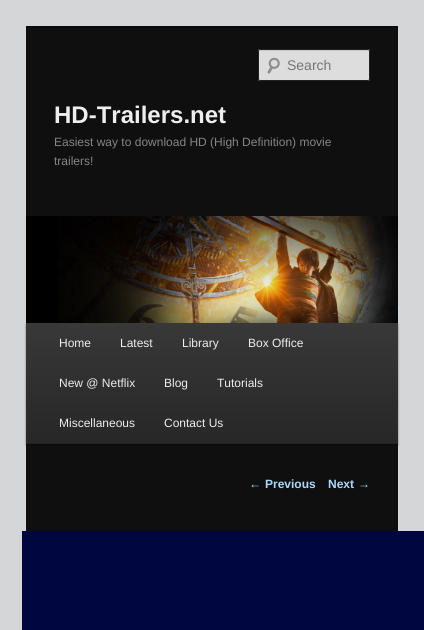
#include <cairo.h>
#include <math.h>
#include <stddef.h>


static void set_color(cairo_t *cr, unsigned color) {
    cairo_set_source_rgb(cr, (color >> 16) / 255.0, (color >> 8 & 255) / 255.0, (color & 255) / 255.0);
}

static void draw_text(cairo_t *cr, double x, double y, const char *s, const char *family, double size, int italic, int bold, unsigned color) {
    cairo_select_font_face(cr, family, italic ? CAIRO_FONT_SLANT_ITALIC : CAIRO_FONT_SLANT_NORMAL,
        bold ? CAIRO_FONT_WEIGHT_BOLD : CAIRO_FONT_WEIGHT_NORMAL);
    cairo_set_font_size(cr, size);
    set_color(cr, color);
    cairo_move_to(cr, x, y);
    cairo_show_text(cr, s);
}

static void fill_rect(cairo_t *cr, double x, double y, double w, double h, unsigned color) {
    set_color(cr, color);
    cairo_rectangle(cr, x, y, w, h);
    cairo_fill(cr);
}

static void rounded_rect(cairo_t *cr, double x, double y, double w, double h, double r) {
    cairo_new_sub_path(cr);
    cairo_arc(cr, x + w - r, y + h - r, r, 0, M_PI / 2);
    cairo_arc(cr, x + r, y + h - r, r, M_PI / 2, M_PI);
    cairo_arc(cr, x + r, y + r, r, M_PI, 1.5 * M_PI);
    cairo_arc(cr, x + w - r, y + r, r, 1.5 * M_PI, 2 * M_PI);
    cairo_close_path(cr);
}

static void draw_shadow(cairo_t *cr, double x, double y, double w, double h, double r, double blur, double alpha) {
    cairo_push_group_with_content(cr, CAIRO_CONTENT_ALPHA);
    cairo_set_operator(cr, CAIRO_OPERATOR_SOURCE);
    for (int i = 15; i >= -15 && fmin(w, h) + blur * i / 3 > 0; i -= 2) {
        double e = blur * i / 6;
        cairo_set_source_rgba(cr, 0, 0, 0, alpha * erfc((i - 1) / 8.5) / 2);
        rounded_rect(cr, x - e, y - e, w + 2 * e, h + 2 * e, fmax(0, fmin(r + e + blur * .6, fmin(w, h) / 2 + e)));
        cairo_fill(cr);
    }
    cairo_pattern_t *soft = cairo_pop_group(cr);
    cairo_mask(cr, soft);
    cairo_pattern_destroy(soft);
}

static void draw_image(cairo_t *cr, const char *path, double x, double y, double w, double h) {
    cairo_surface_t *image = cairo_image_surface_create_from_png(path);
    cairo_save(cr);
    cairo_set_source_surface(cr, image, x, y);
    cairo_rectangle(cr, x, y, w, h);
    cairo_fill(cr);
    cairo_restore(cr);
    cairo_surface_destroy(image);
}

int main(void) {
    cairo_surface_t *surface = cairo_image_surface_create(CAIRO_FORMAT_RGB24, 424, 630);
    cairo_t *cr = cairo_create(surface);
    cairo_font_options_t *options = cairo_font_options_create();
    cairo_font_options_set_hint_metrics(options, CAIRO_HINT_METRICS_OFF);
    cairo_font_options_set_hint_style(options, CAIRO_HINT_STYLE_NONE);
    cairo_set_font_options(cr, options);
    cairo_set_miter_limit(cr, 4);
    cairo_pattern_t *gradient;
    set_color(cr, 0xD5D6D7);
    cairo_paint(cr);
    fill_rect(cr, 26, 28, 372, 503, 0x0F0F0F);
    fill_rect(cr, 26, 26, 372, 2, 0x0A0A0A);
    set_color(cr, 0xDDDDDD);
    rounded_rect(cr, 258, 49, 112, 32, 2);
    cairo_fill(cr);
    draw_image(cr, "assets/img1.png", 267, 57, 13, 17);
    cairo_set_source_rgba(cr, 0, 0, 0, 0.1);
    cairo_new_path(cr);
    cairo_move_to(cr, 260, 51);
    cairo_line_to(cr, 369, 51);
    cairo_line_to(cr, 369, 52);
    cairo_line_to(cr, 368, 50);
    cairo_line_to(cr, 278, 50);
    cairo_curve_to(cr, 274, 50, 259, 45, 259, 52);
    cairo_curve_to(cr, 259, 51, 259, 51, 260, 51);
    cairo_close_path(cr);
    cairo_fill(cr);
    rounded_rect(cr, 258.5, 49.5, 111, 31, 1.5);
    set_color(cr, 0x222222);
    cairo_set_line_width(cr, 1);
    cairo_stroke(cr);
    draw_text(cr, 287, 70, "Search", "Liberation Sans", 14, 0, 0, 0x757575);
    draw_text(cr, 54, 123, "HD-Trailers.net", "Liberation Sans", 24, 0, 1, 0xEEEEEE);
    draw_text(cr, 54, 146, "Easiest way to download HD (High Definition) movie", "Liberation Sans", 12, 0, 0, 0x858585);
    draw_text(cr, 54, 165, "trailers!", "Liberation Sans", 12, 0, 0, 0x858585);
    set_color(cr, 0x000000);
    draw_shadow(cr, 26, 324, 372, 121, 0, 1, 0.4);
    draw_image(cr, "assets/img2.png", 26, 216, 372, 107);
    gradient = cairo_pattern_create_linear(212, 323, 212, 443);
    cairo_pattern_add_color_stop_rgba(gradient, 0, 0.22, 0.22, 0.22, 1);
    cairo_pattern_add_color_stop_rgba(gradient, 1, 0.153, 0.153, 0.153, 1);
    cairo_set_source(cr, gradient);
    cairo_pattern_destroy(gradient);
    cairo_rectangle(cr, 26, 323, 372, 120);
    cairo_fill(cr);
    fill_rect(cr, 26, 443, 372, 1, 0x222222);
    draw_text(cr, 59, 347, "Home", "Liberation Sans", 12, 0, 0, 0xEEEEEE);
    draw_text(cr, 120, 347, "Latest", "Liberation Sans", 12, 0, 0, 0xEEEEEE);
    draw_text(cr, 182, 347, "Library", "Liberation Sans", 12, 0, 0, 0xEEEEEE);
    draw_text(cr, 248, 347, "Box Office", "Liberation Sans", 12, 0, 0, 0xEEEEEE);
    draw_text(cr, 59, 387, "New @ Netflix", "Liberation Sans", 12, 0, 0, 0xEEEEEE);
    draw_text(cr, 164, 387, "Blog", "Liberation Sans", 12, 0, 0, 0xEEEEEE);
    draw_text(cr, 217, 387, "Tutorials", "Liberation Sans", 12, 0, 0, 0xEEEEEE);
    draw_text(cr, 59, 427, "Miscellaneous", "Liberation Sans", 12, 0, 0, 0xEEEEEE);
    draw_text(cr, 164, 427, "Contact Us", "Liberation Sans", 12, 0, 0, 0xEEEEEE);
    draw_text(cr, 249, 488, "←", "Liberation Sans", 12, 0, 0, 0xA8DAFF);
    draw_text(cr, 265, 488, "Previous", "Liberation Sans", 12, 0, 1, 0xA8DAFF);
    draw_text(cr, 328, 488, "Next", "Liberation Sans", 12, 0, 1, 0xA8DAFF);
    draw_text(cr, 358, 488, "→", "Liberation Sans", 12, 0, 0, 0xA8DAFF);
    fill_rect(cr, 22, 531, 402, 99, 0x00063F);
    cairo_surface_write_to_png(surface, "output.png");
    cairo_font_options_destroy(options);
    cairo_destroy(cr);
    cairo_surface_destroy(surface);
    return 0;
}
